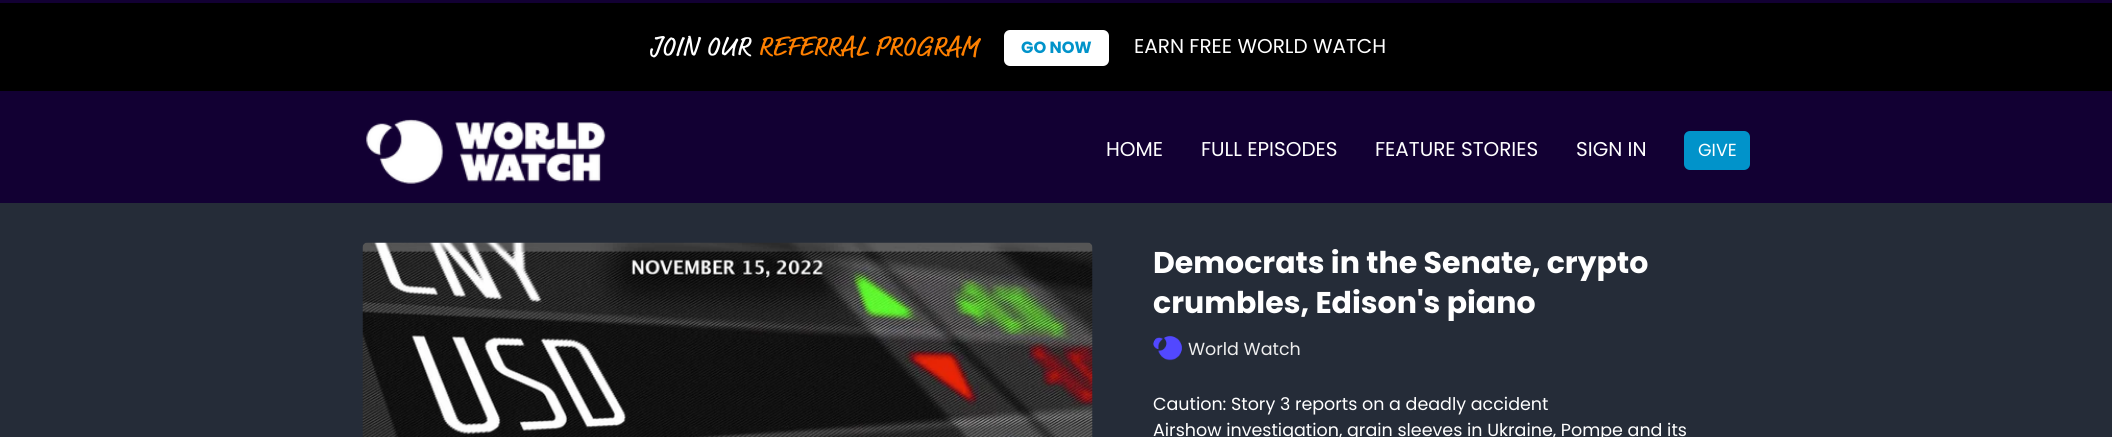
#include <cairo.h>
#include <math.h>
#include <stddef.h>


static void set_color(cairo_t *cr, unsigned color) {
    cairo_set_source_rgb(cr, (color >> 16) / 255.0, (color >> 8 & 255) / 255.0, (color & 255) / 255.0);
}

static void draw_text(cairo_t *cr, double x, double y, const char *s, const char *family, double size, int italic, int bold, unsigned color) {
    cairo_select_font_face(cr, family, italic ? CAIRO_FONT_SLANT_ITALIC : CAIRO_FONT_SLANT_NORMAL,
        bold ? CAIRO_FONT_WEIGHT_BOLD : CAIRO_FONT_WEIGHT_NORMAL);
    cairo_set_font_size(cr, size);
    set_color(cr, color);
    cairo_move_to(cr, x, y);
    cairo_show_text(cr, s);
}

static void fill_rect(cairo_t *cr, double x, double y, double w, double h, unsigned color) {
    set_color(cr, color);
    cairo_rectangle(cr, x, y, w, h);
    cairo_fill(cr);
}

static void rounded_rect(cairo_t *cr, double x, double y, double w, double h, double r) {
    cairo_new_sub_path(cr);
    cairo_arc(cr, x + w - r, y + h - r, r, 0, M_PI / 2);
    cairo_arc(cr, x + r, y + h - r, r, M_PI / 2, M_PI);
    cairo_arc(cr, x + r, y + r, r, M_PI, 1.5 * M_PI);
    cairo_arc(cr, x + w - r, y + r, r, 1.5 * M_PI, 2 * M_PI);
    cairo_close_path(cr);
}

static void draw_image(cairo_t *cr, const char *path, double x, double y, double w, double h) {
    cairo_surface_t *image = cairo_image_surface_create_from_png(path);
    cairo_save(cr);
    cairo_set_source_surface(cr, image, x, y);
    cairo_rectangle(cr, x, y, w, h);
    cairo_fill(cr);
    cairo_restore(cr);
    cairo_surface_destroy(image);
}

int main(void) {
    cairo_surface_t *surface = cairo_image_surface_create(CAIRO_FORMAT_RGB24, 2112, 437);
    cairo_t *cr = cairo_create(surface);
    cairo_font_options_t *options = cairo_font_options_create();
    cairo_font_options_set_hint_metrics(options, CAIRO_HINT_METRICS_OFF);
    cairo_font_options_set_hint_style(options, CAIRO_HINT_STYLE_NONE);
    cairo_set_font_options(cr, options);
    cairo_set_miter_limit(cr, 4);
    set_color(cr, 0x120033);
    cairo_paint(cr);
    fill_rect(cr, 0, 3, 2112, 88, 0x000000);
    draw_text(cr, 650, 55, "JOIN OUR", "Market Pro", 28, 0, 0, 0xFFFFFF);
    draw_text(cr, 758, 55, "REFERRAL PROGRAM", "Market Pro", 28, 0, 0, 0xFF8000);
    set_color(cr, 0xFFFFFF);
    rounded_rect(cr, 1004, 30, 105, 36, 6);
    cairo_fill(cr);
    draw_text(cr, 1021, 53, "GO NOW", "Poppins", 16.25, 0, 1, 0x0193CA);
    draw_text(cr, 1134, 53, "EARN FREE WORLD WATCH", "Poppins", 20, 0, 0, 0xFFFFFF);
    draw_image(cr, "assets/img1.png", 366, 119, 240, 65);
    draw_text(cr, 1106, 156, "HOME", "Poppins", 20, 0, 0, 0xFFFFFF);
    draw_text(cr, 1201, 156, "FULL EPISODES", "Poppins", 20, 0, 0, 0xFFFFFF);
    draw_text(cr, 1375, 156, "FEATURE STORIES", "Poppins", 20, 0, 0, 0xFFFFFF);
    draw_text(cr, 1576, 156, "SIGN IN", "Poppins", 20, 0, 0, 0xFFFFFF);
    set_color(cr, 0x0193CA);
    rounded_rect(cr, 1684, 131, 66, 39, 6);
    cairo_fill(cr);
    draw_text(cr, 1698, 156, "GIVE", "Poppins", 17.5, 0, 0, 0xFFFFFF);
    fill_rect(cr, 0, 203, 2112, 234, 0x252C38);
    draw_image(cr, "assets/img2.png", 362, 242, 731, 195);
    draw_text(cr, 1153, 273, "Democrats in the Senate, crypto", "Poppins", 30, 0, 1, 0xFFFFFF);
    draw_text(cr, 1153, 313, "crumbles, Edison's piano", "Poppins", 30, 0, 1, 0xFFFFFF);
    draw_image(cr, "assets/img3.png", 1153, 335, 29, 26);
    draw_text(cr, 1188, 355, "World Watch", "Poppins", 17.5, 0, 0, 0xEEEEEE);
    draw_text(cr, 1153, 410, "Caution: Story 3 reports on a deadly accident", "Poppins", 17.5, 0, 0, 0xFFFFFF);
    draw_text(cr, 1153, 436, "Airshow investigation, grain sleeves in Ukraine, Pompe and its", "Poppins", 17.5, 0, 0, 0xFFFFFF);
    cairo_surface_write_to_png(surface, "output.png");
    cairo_font_options_destroy(options);
    cairo_destroy(cr);
    cairo_surface_destroy(surface);
    return 0;
}
